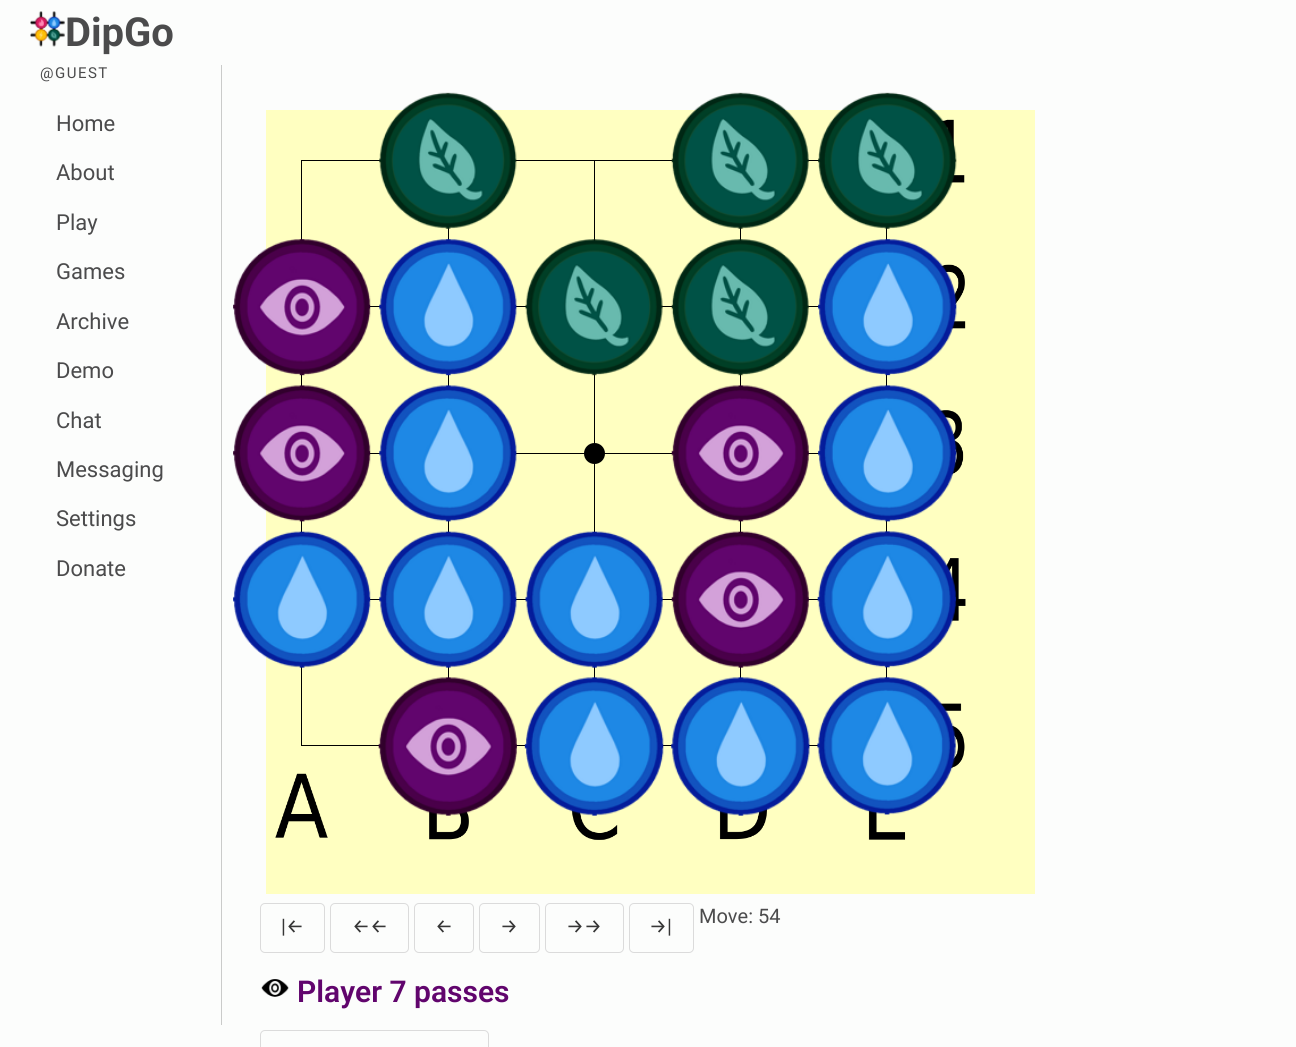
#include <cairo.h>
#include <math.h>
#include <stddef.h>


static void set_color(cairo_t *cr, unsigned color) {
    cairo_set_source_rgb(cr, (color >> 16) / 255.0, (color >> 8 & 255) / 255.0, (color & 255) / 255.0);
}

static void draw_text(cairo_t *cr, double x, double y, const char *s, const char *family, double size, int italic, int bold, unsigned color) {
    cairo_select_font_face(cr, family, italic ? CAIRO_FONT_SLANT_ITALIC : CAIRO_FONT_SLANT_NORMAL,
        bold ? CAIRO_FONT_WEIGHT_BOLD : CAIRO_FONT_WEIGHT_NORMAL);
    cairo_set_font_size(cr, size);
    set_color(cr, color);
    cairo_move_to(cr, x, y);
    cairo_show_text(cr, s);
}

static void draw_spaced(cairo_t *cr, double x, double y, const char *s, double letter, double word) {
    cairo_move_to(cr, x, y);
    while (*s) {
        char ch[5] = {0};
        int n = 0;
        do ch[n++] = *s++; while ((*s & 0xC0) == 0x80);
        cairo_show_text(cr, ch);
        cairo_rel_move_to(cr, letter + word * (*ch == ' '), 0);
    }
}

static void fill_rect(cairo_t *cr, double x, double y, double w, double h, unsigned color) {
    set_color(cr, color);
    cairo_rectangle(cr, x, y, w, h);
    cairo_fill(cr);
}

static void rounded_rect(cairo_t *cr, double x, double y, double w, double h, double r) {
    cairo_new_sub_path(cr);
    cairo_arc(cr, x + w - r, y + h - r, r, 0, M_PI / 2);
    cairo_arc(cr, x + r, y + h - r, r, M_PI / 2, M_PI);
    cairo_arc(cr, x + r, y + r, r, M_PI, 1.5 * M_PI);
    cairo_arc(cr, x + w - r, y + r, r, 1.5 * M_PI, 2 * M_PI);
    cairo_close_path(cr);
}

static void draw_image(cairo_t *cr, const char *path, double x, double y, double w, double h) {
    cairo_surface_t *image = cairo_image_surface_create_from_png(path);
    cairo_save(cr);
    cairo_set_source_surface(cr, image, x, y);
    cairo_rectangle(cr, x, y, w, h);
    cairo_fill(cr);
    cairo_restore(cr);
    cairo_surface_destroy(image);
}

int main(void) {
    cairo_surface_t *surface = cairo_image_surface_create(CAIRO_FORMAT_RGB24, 1296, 1047);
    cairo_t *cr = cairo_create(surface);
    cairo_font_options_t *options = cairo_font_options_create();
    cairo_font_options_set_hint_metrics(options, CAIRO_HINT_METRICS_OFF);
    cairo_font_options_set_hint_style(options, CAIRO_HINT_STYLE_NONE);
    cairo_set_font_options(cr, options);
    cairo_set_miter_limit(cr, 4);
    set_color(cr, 0xFCFDFC);
    cairo_paint(cr);
    draw_image(cr, "assets/img1.png", 30, 11, 35, 36);
    draw_text(cr, 65, 46, "DipGo", "Roboto", 40, 0, 1, 0x4B4B4C);
    fill_rect(cr, 221, 65, 1, 960, 0xCACBCA);
    cairo_select_font_face(cr, "Roboto", CAIRO_FONT_SLANT_NORMAL, CAIRO_FONT_WEIGHT_NORMAL);
    cairo_set_font_size(cr, 15);
    set_color(cr, 0x4B4B4C);
    draw_spaced(cr, 40, 78, "@GUEST", 1.5, 0);
    draw_text(cr, 56, 131, "Home", "Roboto", 22, 0, 0, 0x4B4B4C);
    draw_text(cr, 56, 180, "About", "Roboto", 22, 0, 0, 0x4B4B4C);
    draw_text(cr, 56, 230, "Play", "Roboto", 22, 0, 0, 0x4B4B4C);
    draw_text(cr, 56, 279, "Games", "Roboto", 22, 0, 0, 0x4B4B4C);
    draw_text(cr, 56, 329, "Archive", "Roboto", 22, 0, 0, 0x4B4B4C);
    draw_text(cr, 56, 378, "Demo", "Roboto", 22, 0, 0, 0x4B4B4C);
    draw_text(cr, 56, 428, "Chat", "Roboto", 22, 0, 0, 0x4B4B4C);
    draw_text(cr, 56, 477, "Messaging", "Roboto", 22, 0, 0, 0x4B4B4C);
    draw_text(cr, 56, 526, "Settings", "Roboto", 22, 0, 0, 0x4B4B4C);
    draw_text(cr, 56, 576, "Donate", "Roboto", 22, 0, 0, 0x4B4B4C);
    fill_rect(cr, 266, 110, 769, 784, 0xFFFFC1);
    fill_rect(cr, 301, 160, 80, 1, 0x000000);
    fill_rect(cr, 301, 160, 1, 80, 0x000000);
    fill_rect(cr, 594, 160, 80, 1, 0x000000);
    fill_rect(cr, 594, 160, 1, 81, 0x000000);
    fill_rect(cr, 515, 160, 80, 1, 0x000000);
    fill_rect(cr, 448, 226, 1, 14, 0x000000);
    draw_image(cr, "assets/img2.png", 379, 92, 138, 137);
    fill_rect(cr, 807, 160, 13, 1, 0x000000);
    fill_rect(cr, 886, 226, 1, 15, 0x000000);
    fill_rect(cr, 740, 226, 1, 15, 0x000000);
    draw_image(cr, "assets/img3.png", 671, 92, 138, 137);
    draw_image(cr, "assets/img5.png", 941, 119, 24, 64);
    draw_image(cr, "assets/img4.png", 818, 92, 139, 137);
    fill_rect(cr, 370, 306, 10, 1, 0x000000);
    fill_rect(cr, 301, 375, 1, 11, 0x000000);
    draw_image(cr, "assets/img6.png", 233, 239, 138, 137);
    fill_rect(cr, 516, 306, 11, 1, 0x000000);
    fill_rect(cr, 448, 375, 1, 11, 0x000000);
    draw_image(cr, "assets/img7.png", 379, 239, 138, 137);
    fill_rect(cr, 661, 306, 13, 1, 0x000000);
    fill_rect(cr, 594, 373, 1, 71, 0x000000);
    draw_image(cr, "assets/img8.png", 525, 239, 138, 137);
    fill_rect(cr, 807, 306, 12, 1, 0x000000);
    fill_rect(cr, 886, 373, 1, 14, 0x000000);
    fill_rect(cr, 740, 373, 1, 13, 0x000000);
    draw_image(cr, "assets/img9.png", 671, 239, 138, 137);
    draw_image(cr, "assets/img11.png", 941, 264, 25, 65);
    draw_image(cr, "assets/img10.png", 818, 239, 139, 137);
    fill_rect(cr, 370, 453, 10, 1, 0x000000);
    fill_rect(cr, 301, 521, 1, 11, 0x000000);
    draw_image(cr, "assets/img12.png", 233, 385, 138, 137);
    fill_rect(cr, 516, 453, 69, 1, 0x000000);
    fill_rect(cr, 448, 521, 1, 11, 0x000000);
    draw_image(cr, "assets/img13.png", 379, 385, 138, 137);
    fill_rect(cr, 604, 453, 68, 1, 0x000000);
    fill_rect(cr, 594, 463, 1, 69, 0x000000);
    cairo_arc(cr, 594.5, 453.5, 10.5, 0, 2 * M_PI);
    cairo_fill(cr);
    fill_rect(cr, 808, 453, 11, 1, 0x000000);
    fill_rect(cr, 886, 519, 1, 13, 0x000000);
    fill_rect(cr, 740, 521, 1, 11, 0x000000);
    draw_image(cr, "assets/img14.png", 671, 385, 138, 137);
    draw_image(cr, "assets/img16.png", 940, 410, 24, 65);
    draw_image(cr, "assets/img15.png", 818, 385, 139, 137);
    fill_rect(cr, 370, 599, 10, 1, 0x000000);
    fill_rect(cr, 301, 745, 80, 1, 0x000000);
    fill_rect(cr, 301, 667, 1, 79, 0x000000);
    draw_image(cr, "assets/img17.png", 233, 531, 138, 137);
    fill_rect(cr, 516, 599, 10, 1, 0x000000);
    fill_rect(cr, 516, 745, 11, 1, 0x000000);
    fill_rect(cr, 448, 667, 1, 11, 0x000000);
    draw_image(cr, "assets/img18.png", 379, 531, 138, 137);
    fill_rect(cr, 662, 599, 10, 1, 0x000000);
    fill_rect(cr, 662, 745, 11, 1, 0x000000);
    fill_rect(cr, 594, 667, 1, 11, 0x000000);
    draw_image(cr, "assets/img19.png", 525, 531, 138, 137);
    fill_rect(cr, 808, 599, 10, 1, 0x000000);
    fill_rect(cr, 886, 666, 1, 12, 0x000000);
    fill_rect(cr, 808, 745, 10, 1, 0x000000);
    fill_rect(cr, 740, 667, 1, 11, 0x000000);
    draw_image(cr, "assets/img20.png", 671, 531, 138, 137);
    draw_image(cr, "assets/img22.png", 946, 558, 20, 63);
    draw_image(cr, "assets/img21.png", 817, 531, 140, 137);
    draw_image(cr, "assets/img23.png", 275, 773, 53, 65);
    draw_image(cr, "assets/img25.png", 429, 811, 40, 29);
    draw_image(cr, "assets/img24.png", 378, 677, 139, 139);
    draw_image(cr, "assets/img27.png", 572, 809, 46, 31);
    draw_image(cr, "assets/img26.png", 524, 677, 140, 139);
    draw_image(cr, "assets/img29.png", 719, 808, 48, 32);
    draw_image(cr, "assets/img28.png", 671, 677, 139, 139);
    draw_image(cr, "assets/img31.png", 939, 703, 26, 66);
    draw_image(cr, "assets/img32.png", 868, 809, 38, 31);
    draw_image(cr, "assets/img30.png", 817, 677, 139, 138);
    draw_text(cr, 699, 923, "Move: 54", "Roboto", 20, 0, 0, 0x4B4B4C);
    rounded_rect(cr, 260.5, 903.5, 64, 49, 4.5);
    set_color(cr, 0xDBDBDB);
    cairo_set_line_width(cr, 1);
    cairo_stroke(cr);
    draw_text(cr, 281, 933, "|", "Roboto", 20, 0, 0, 0x363636);
    draw_text(cr, 286, 933, "←", "Fira Sans", 20, 0, 0, 0x363636);
    rounded_rect(cr, 330.5, 903.5, 78, 49, 4.5);
    set_color(cr, 0xDBDBDB);
    cairo_stroke(cr);
    draw_text(cr, 352, 933, "←←", "Fira Sans", 20, 0, 0, 0x363636);
    rounded_rect(cr, 414.5, 903.5, 59, 49, 4.5);
    set_color(cr, 0xDBDBDB);
    cairo_stroke(cr);
    draw_text(cr, 435, 933, "←", "Fira Sans", 20, 0, 0, 0x363636);
    rounded_rect(cr, 479.5, 903.5, 60, 49, 4.5);
    set_color(cr, 0xDBDBDB);
    cairo_stroke(cr);
    draw_text(cr, 500, 933, "→", "Fira Sans", 20, 0, 0, 0x363636);
    rounded_rect(cr, 545.5, 903.5, 78, 49, 4.5);
    set_color(cr, 0xDBDBDB);
    cairo_stroke(cr);
    draw_text(cr, 566, 933, "→→", "Fira Sans", 20, 0, 0, 0x363636);
    rounded_rect(cr, 629.5, 903.5, 64, 49, 4.5);
    set_color(cr, 0xDBDBDB);
    cairo_stroke(cr);
    draw_text(cr, 649, 933, "→", "Fira Sans", 20, 0, 0, 0x363636);
    draw_text(cr, 667, 933, "|", "Roboto", 20, 0, 0, 0x363636);
    draw_image(cr, "assets/img33.png", 261, 979, 28, 18);
    draw_text(cr, 297, 1002, "Player 7 passes", "Roboto SemiBold", 30, 0, 0, 0x61056D);
    rounded_rect(cr, 260.5, 1030.5, 228, 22, 4.5);
    set_color(cr, 0xDBDBDB);
    cairo_stroke(cr);
    cairo_surface_write_to_png(surface, "output.png");
    cairo_font_options_destroy(options);
    cairo_destroy(cr);
    cairo_surface_destroy(surface);
    return 0;
}
